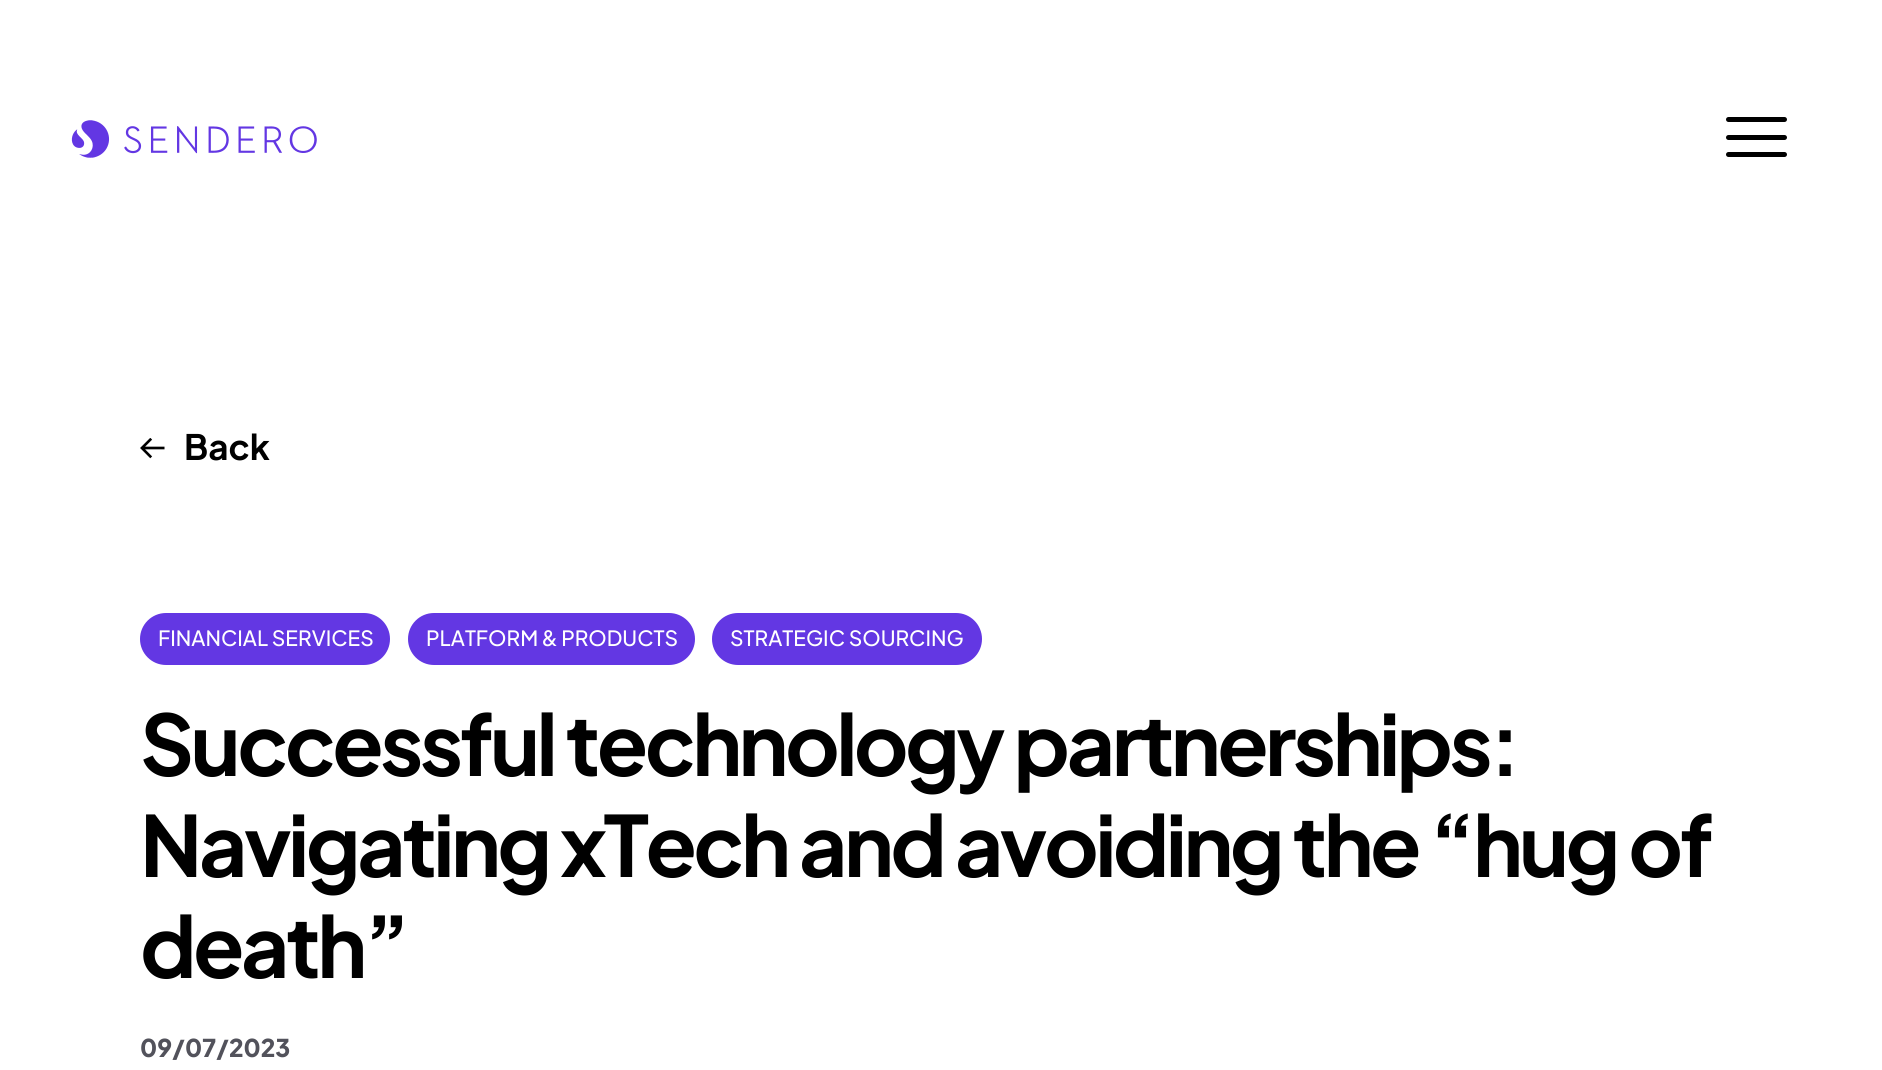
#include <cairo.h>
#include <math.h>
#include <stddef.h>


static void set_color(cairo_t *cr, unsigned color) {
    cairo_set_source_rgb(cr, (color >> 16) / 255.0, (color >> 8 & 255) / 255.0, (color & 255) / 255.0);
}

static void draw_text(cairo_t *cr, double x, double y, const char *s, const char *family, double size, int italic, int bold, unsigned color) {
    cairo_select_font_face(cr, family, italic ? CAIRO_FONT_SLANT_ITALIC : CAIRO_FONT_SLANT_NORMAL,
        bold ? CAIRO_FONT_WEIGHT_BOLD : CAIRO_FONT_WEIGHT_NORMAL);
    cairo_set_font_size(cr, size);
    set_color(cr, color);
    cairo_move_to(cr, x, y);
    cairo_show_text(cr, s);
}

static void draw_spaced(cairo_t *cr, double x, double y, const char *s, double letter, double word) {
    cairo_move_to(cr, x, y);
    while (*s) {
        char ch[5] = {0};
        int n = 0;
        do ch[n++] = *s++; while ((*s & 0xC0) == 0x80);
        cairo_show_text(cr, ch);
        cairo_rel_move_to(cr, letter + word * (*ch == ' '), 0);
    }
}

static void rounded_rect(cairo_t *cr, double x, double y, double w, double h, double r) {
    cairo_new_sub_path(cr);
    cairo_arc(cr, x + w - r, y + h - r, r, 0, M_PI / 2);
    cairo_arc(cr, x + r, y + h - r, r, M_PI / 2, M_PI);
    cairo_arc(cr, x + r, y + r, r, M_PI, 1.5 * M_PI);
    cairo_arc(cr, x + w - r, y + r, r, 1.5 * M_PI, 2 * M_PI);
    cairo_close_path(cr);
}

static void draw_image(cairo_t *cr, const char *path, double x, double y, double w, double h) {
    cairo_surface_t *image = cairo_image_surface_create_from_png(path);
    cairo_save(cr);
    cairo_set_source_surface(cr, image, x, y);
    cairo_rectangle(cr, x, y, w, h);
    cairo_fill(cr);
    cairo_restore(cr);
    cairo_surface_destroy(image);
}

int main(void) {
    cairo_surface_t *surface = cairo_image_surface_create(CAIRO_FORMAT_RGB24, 1882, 1070);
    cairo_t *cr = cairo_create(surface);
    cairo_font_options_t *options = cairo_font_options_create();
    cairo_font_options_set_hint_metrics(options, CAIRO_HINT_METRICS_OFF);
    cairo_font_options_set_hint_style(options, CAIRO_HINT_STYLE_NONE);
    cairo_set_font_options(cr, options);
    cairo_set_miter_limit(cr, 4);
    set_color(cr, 0xFFFFFF);
    cairo_paint(cr);
    draw_image(cr, "assets/img1.png", 71, 120, 246, 38);
    set_color(cr, 0x000000);
    rounded_rect(cr, 1726, 117, 61, 5, 2.5);
    cairo_fill(cr);
    rounded_rect(cr, 1726, 135, 61, 5, 2.5);
    cairo_fill(cr);
    rounded_rect(cr, 1726, 152, 61, 5, 2.5);
    cairo_fill(cr);
    draw_image(cr, "assets/img2.png", 140, 438, 25, 21);
    draw_text(cr, 184, 460, "Back", "Plus Jakarta Sans", 35, 0, 1, 0x000000);
    set_color(cr, 0x6337E3);
    rounded_rect(cr, 140, 613, 250, 52, 26);
    cairo_fill(cr);
    draw_text(cr, 158, 646, "FINANCIAL SERVICES", "Plus Jakarta Sans Medium", 21, 0, 0, 0xFFFFFF);
    set_color(cr, 0x6337E3);
    rounded_rect(cr, 408, 613, 287, 52, 26);
    cairo_fill(cr);
    draw_text(cr, 426, 646, "PLATFORM & PRODUCTS", "Plus Jakarta Sans Medium", 21, 0, 0, 0xFFFFFF);
    set_color(cr, 0x6337E3);
    rounded_rect(cr, 712, 613, 270, 52, 26);
    cairo_fill(cr);
    draw_text(cr, 730, 646, "STRATEGIC SOURCING", "Plus Jakarta Sans Medium", 21, 0, 0, 0xFFFFFF);
    cairo_select_font_face(cr, "Plus Jakarta Sans", CAIRO_FONT_SLANT_NORMAL, CAIRO_FONT_WEIGHT_BOLD);
    cairo_set_font_size(cr, 84);
    set_color(cr, 0x000000);
    draw_spaced(cr, 140, 776, "Successful technology partnerships:", -3.5, 0);
    draw_spaced(cr, 140, 877, "Navigating xTech and avoiding the “hug of", -3.5, 0);
    draw_spaced(cr, 140, 978, "death”", -3.5, 0);
    draw_text(cr, 140, 1057, "09/07/2023", "Plus Jakarta Sans ExtraBold", 24.5, 0, 0, 0x52525B);
    cairo_surface_write_to_png(surface, "output.png");
    cairo_font_options_destroy(options);
    cairo_destroy(cr);
    cairo_surface_destroy(surface);
    return 0;
}
